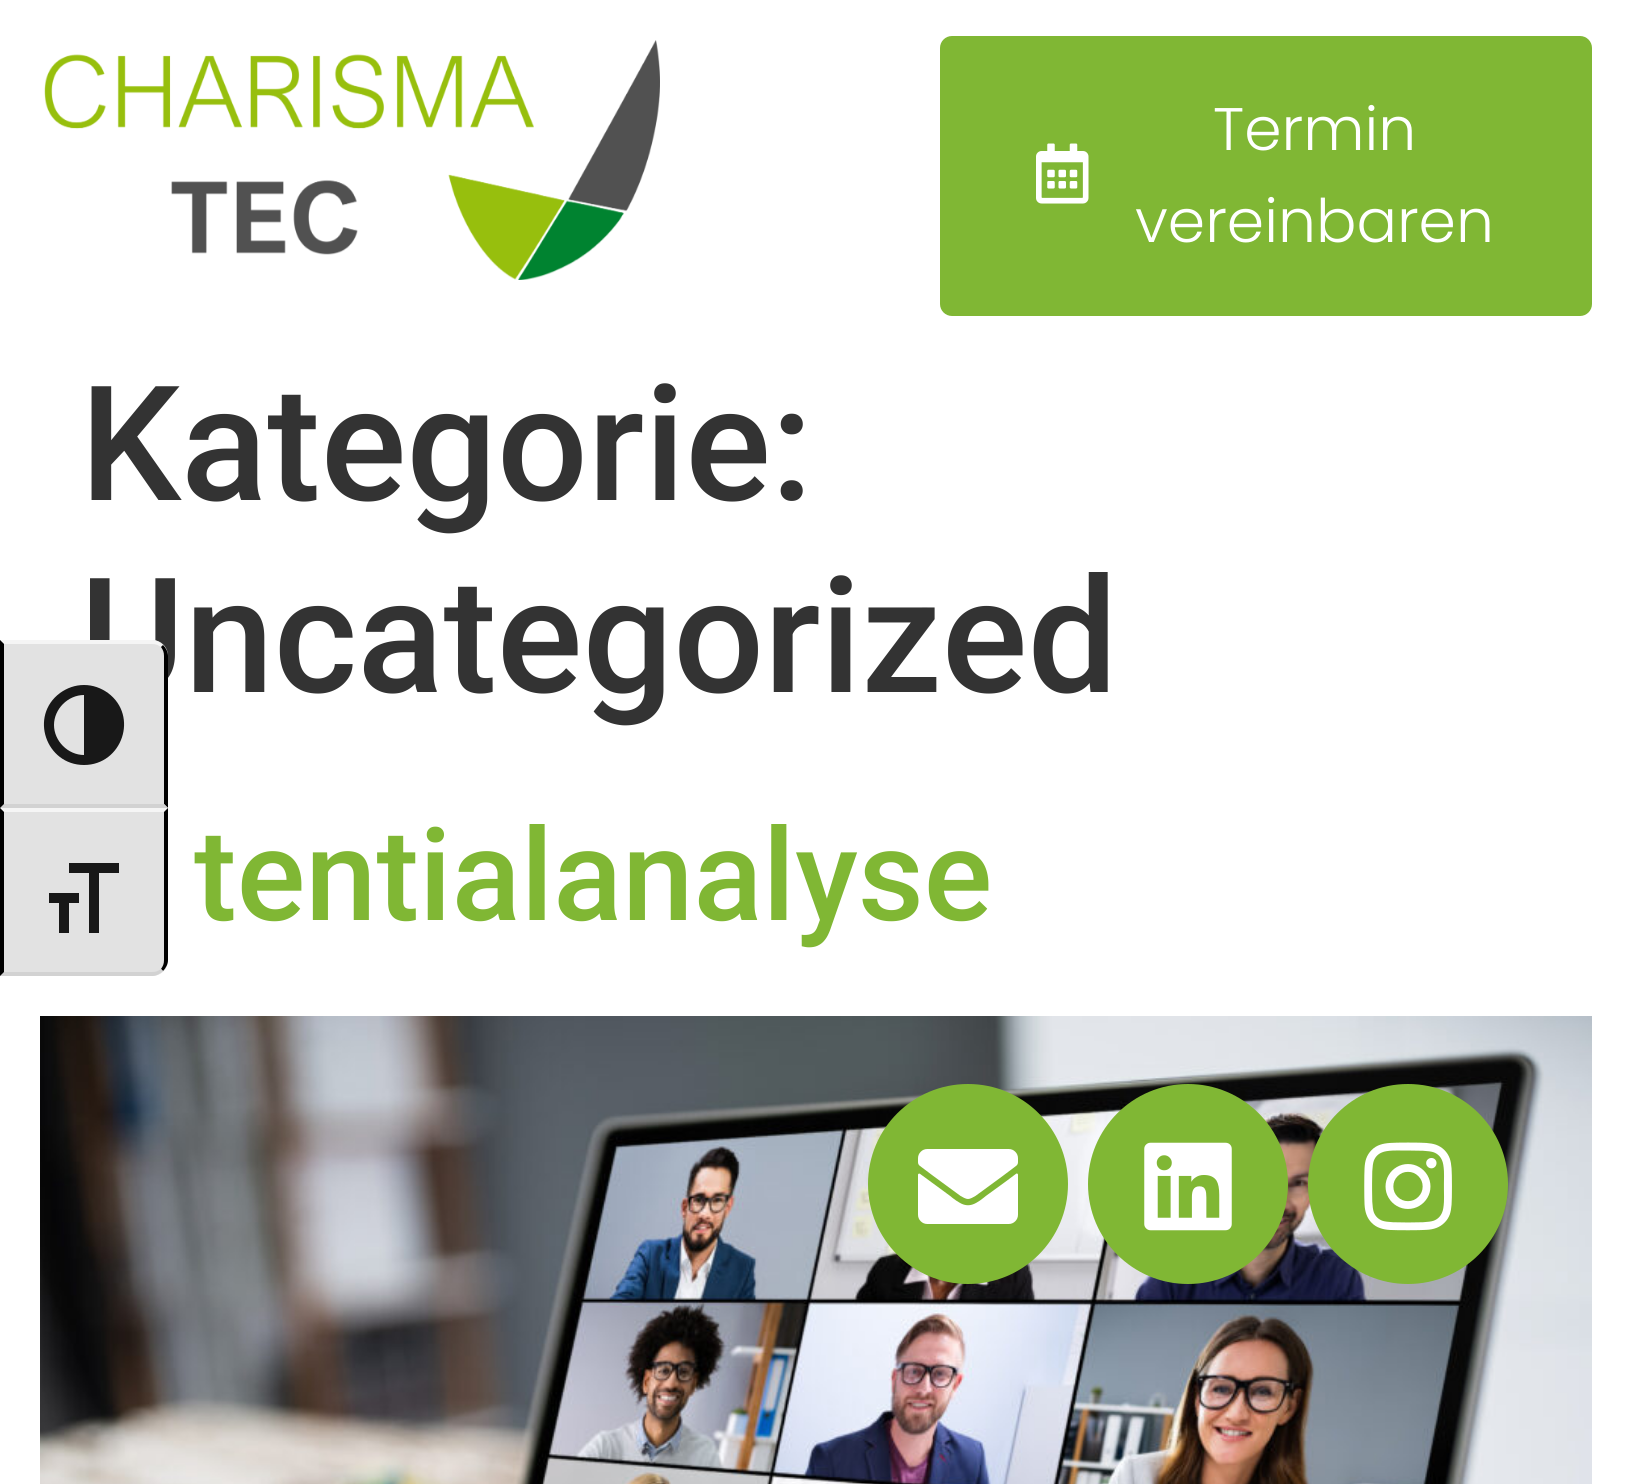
#include <cairo.h>
#include <math.h>
#include <stddef.h>


static void set_color(cairo_t *cr, unsigned color) {
    cairo_set_source_rgb(cr, (color >> 16) / 255.0, (color >> 8 & 255) / 255.0, (color & 255) / 255.0);
}

static void draw_text(cairo_t *cr, double x, double y, const char *s, const char *family, double size, int italic, int bold, unsigned color) {
    cairo_select_font_face(cr, family, italic ? CAIRO_FONT_SLANT_ITALIC : CAIRO_FONT_SLANT_NORMAL,
        bold ? CAIRO_FONT_WEIGHT_BOLD : CAIRO_FONT_WEIGHT_NORMAL);
    cairo_set_font_size(cr, size);
    set_color(cr, color);
    cairo_move_to(cr, x, y);
    cairo_show_text(cr, s);
}

static void rounded_rect(cairo_t *cr, double x, double y, double w, double h, double r) {
    cairo_new_sub_path(cr);
    cairo_arc(cr, x + w - r, y + h - r, r, 0, M_PI / 2);
    cairo_arc(cr, x + r, y + h - r, r, M_PI / 2, M_PI);
    cairo_arc(cr, x + r, y + r, r, M_PI, 1.5 * M_PI);
    cairo_arc(cr, x + w - r, y + r, r, 1.5 * M_PI, 2 * M_PI);
    cairo_close_path(cr);
}

static void draw_image(cairo_t *cr, const char *path, double x, double y, double w, double h) {
    cairo_surface_t *image = cairo_image_surface_create_from_png(path);
    cairo_save(cr);
    cairo_set_source_surface(cr, image, x, y);
    cairo_rectangle(cr, x, y, w, h);
    cairo_fill(cr);
    cairo_restore(cr);
    cairo_surface_destroy(image);
}

int main(void) {
    cairo_surface_t *surface = cairo_image_surface_create(CAIRO_FORMAT_RGB24, 1631, 1484);
    cairo_t *cr = cairo_create(surface);
    cairo_font_options_t *options = cairo_font_options_create();
    cairo_font_options_set_hint_metrics(options, CAIRO_HINT_METRICS_OFF);
    cairo_font_options_set_hint_style(options, CAIRO_HINT_STYLE_NONE);
    cairo_set_font_options(cr, options);
    cairo_set_miter_limit(cr, 4);
    set_color(cr, 0xFFFFFF);
    cairo_paint(cr);
    draw_image(cr, "assets/img1.png", 44, 40, 616, 240);
    set_color(cr, 0x80B734);
    rounded_rect(cr, 940, 36, 652, 280, 12);
    cairo_fill(cr);
    draw_image(cr, "assets/img2.png", 1036, 143, 53, 61);
    draw_text(cr, 1213, 150, "Termin", "Poppins Light", 60, 0, 0, 0xFFFFFF);
    draw_text(cr, 1135, 242, "vereinbaren", "Poppins Light", 60, 0, 0, 0xFFFFFF);
    draw_text(cr, 80, 692, "Uncategorized", "Roboto Medium", 160, 0, 0, 0x333333);
    set_color(cr, 0xE2E2E2);
    cairo_new_path(cr);
    cairo_move_to(cr, 0, 640);
    cairo_line_to(cr, 152, 640);
    cairo_curve_to(cr, 161, 640, 168, 647, 168, 656);
    cairo_line_to(cr, 168, 808);
    cairo_line_to(cr, 0, 808);
    cairo_close_path(cr);
    cairo_fill(cr);
    set_color(cr, 0xF5F5F5);
    cairo_new_path(cr);
    cairo_move_to(cr, 0, 640);
    cairo_line_to(cr, 4, 644);
    cairo_line_to(cr, 152, 644);
    cairo_curve_to(cr, 156, 644, 158, 645, 161, 647);
    cairo_line_to(cr, 163, 645);
    cairo_curve_to(cr, 160, 642, 156, 640, 152, 640);
    cairo_close_path(cr);
    cairo_fill(cr);
    set_color(cr, 0x000000);
    cairo_new_path(cr);
    cairo_move_to(cr, 168, 808);
    cairo_line_to(cr, 168, 656);
    cairo_curve_to(cr, 168, 652, 166, 648, 163, 645);
    cairo_line_to(cr, 161, 647);
    cairo_curve_to(cr, 163, 650, 164, 652, 164, 656);
    cairo_line_to(cr, 164, 804);
    cairo_close_path(cr);
    cairo_fill(cr);
    set_color(cr, 0xD2D2D2);
    cairo_new_path(cr);
    cairo_move_to(cr, 168, 808);
    cairo_line_to(cr, 164, 804);
    cairo_line_to(cr, 4, 804);
    cairo_line_to(cr, 0, 808);
    cairo_close_path(cr);
    cairo_fill(cr);
    set_color(cr, 0x000000);
    cairo_new_path(cr);
    cairo_move_to(cr, 0, 640);
    cairo_line_to(cr, 0, 808);
    cairo_line_to(cr, 4, 804);
    cairo_line_to(cr, 4, 644);
    cairo_close_path(cr);
    cairo_fill(cr);
    set_color(cr, 0x181818);
    cairo_new_path(cr);
    cairo_move_to(cr, 84, 685);
    cairo_curve_to(cr, 75, 685, 67, 688, 60, 693);
    cairo_curve_to(cr, 29, 716, 46, 765, 84, 765);
    cairo_curve_to(cr, 122, 765, 139, 716, 108, 693);
    cairo_curve_to(cr, 101, 688, 93, 685, 84, 685);
    cairo_close_path(cr);
    cairo_move_to(cr, 54, 725);
    cairo_curve_to(cr, 54, 709, 68, 695, 84, 695);
    cairo_line_to(cr, 84, 755);
    cairo_curve_to(cr, 68, 755, 54, 741, 54, 725);
    cairo_close_path(cr);
    cairo_fill(cr);
    set_color(cr, 0xE2E2E2);
    cairo_new_path(cr);
    cairo_move_to(cr, 0, 808);
    cairo_line_to(cr, 168, 808);
    cairo_line_to(cr, 168, 960);
    cairo_curve_to(cr, 168, 969, 161, 976, 152, 976);
    cairo_line_to(cr, 0, 976);
    cairo_close_path(cr);
    cairo_fill(cr);
    set_color(cr, 0xF5F5F5);
    cairo_new_path(cr);
    cairo_move_to(cr, 0, 808);
    cairo_line_to(cr, 4, 812);
    cairo_line_to(cr, 164, 812);
    cairo_line_to(cr, 168, 808);
    cairo_close_path(cr);
    cairo_fill(cr);
    set_color(cr, 0x000000);
    cairo_new_path(cr);
    cairo_move_to(cr, 168, 808);
    cairo_line_to(cr, 164, 812);
    cairo_line_to(cr, 164, 960);
    cairo_curve_to(cr, 164, 964, 163, 966, 161, 969);
    cairo_line_to(cr, 163, 971);
    cairo_curve_to(cr, 166, 968, 168, 964, 168, 960);
    cairo_close_path(cr);
    cairo_fill(cr);
    set_color(cr, 0xD2D2D2);
    cairo_new_path(cr);
    cairo_move_to(cr, 152, 976);
    cairo_curve_to(cr, 156, 976, 160, 974, 163, 971);
    cairo_line_to(cr, 161, 969);
    cairo_curve_to(cr, 158, 971, 156, 972, 152, 972);
    cairo_line_to(cr, 4, 972);
    cairo_line_to(cr, 0, 976);
    cairo_close_path(cr);
    cairo_fill(cr);
    set_color(cr, 0x000000);
    cairo_new_path(cr);
    cairo_move_to(cr, 0, 808);
    cairo_line_to(cr, 0, 976);
    cairo_line_to(cr, 4, 972);
    cairo_line_to(cr, 4, 812);
    cairo_close_path(cr);
    cairo_fill(cr);
    set_color(cr, 0x181818);
    cairo_new_path(cr);
    cairo_move_to(cr, 49, 893);
    cairo_line_to(cr, 79, 893);
    cairo_line_to(cr, 79, 903);
    cairo_line_to(cr, 69, 903);
    cairo_line_to(cr, 69, 933);
    cairo_line_to(cr, 59, 933);
    cairo_line_to(cr, 59, 903);
    cairo_line_to(cr, 49, 903);
    cairo_close_path(cr);
    cairo_move_to(cr, 119, 873);
    cairo_line_to(cr, 99, 873);
    cairo_line_to(cr, 99, 933);
    cairo_line_to(cr, 89, 933);
    cairo_line_to(cr, 89, 873);
    cairo_line_to(cr, 69, 873);
    cairo_line_to(cr, 69, 863);
    cairo_line_to(cr, 119, 863);
    cairo_close_path(cr);
    cairo_fill(cr);
    draw_text(cr, 80, 500, "Kategorie:", "Roboto Medium", 160, 0, 0, 0x333333);
    draw_text(cr, 194, 920, "tentialanalyse", "Roboto Medium", 128, 0, 0, 0x80B734);
    draw_image(cr, "assets/img3.png", 40, 1016, 1552, 468);
    cairo_arc(cr, 968, 1184, 100, 0, 2 * M_PI);
    cairo_fill(cr);
    draw_image(cr, "assets/img4.png", 918, 1149, 100, 75);
    cairo_arc(cr, 1188, 1184, 100, 0, 2 * M_PI);
    cairo_fill(cr);
    draw_image(cr, "assets/img5.png", 1144, 1142, 88, 89);
    cairo_arc(cr, 1408, 1184, 100, 0, 2 * M_PI);
    cairo_fill(cr);
    draw_image(cr, "assets/img6.png", 1364, 1142, 88, 89);
    cairo_surface_write_to_png(surface, "output.png");
    cairo_font_options_destroy(options);
    cairo_destroy(cr);
    cairo_surface_destroy(surface);
    return 0;
}
